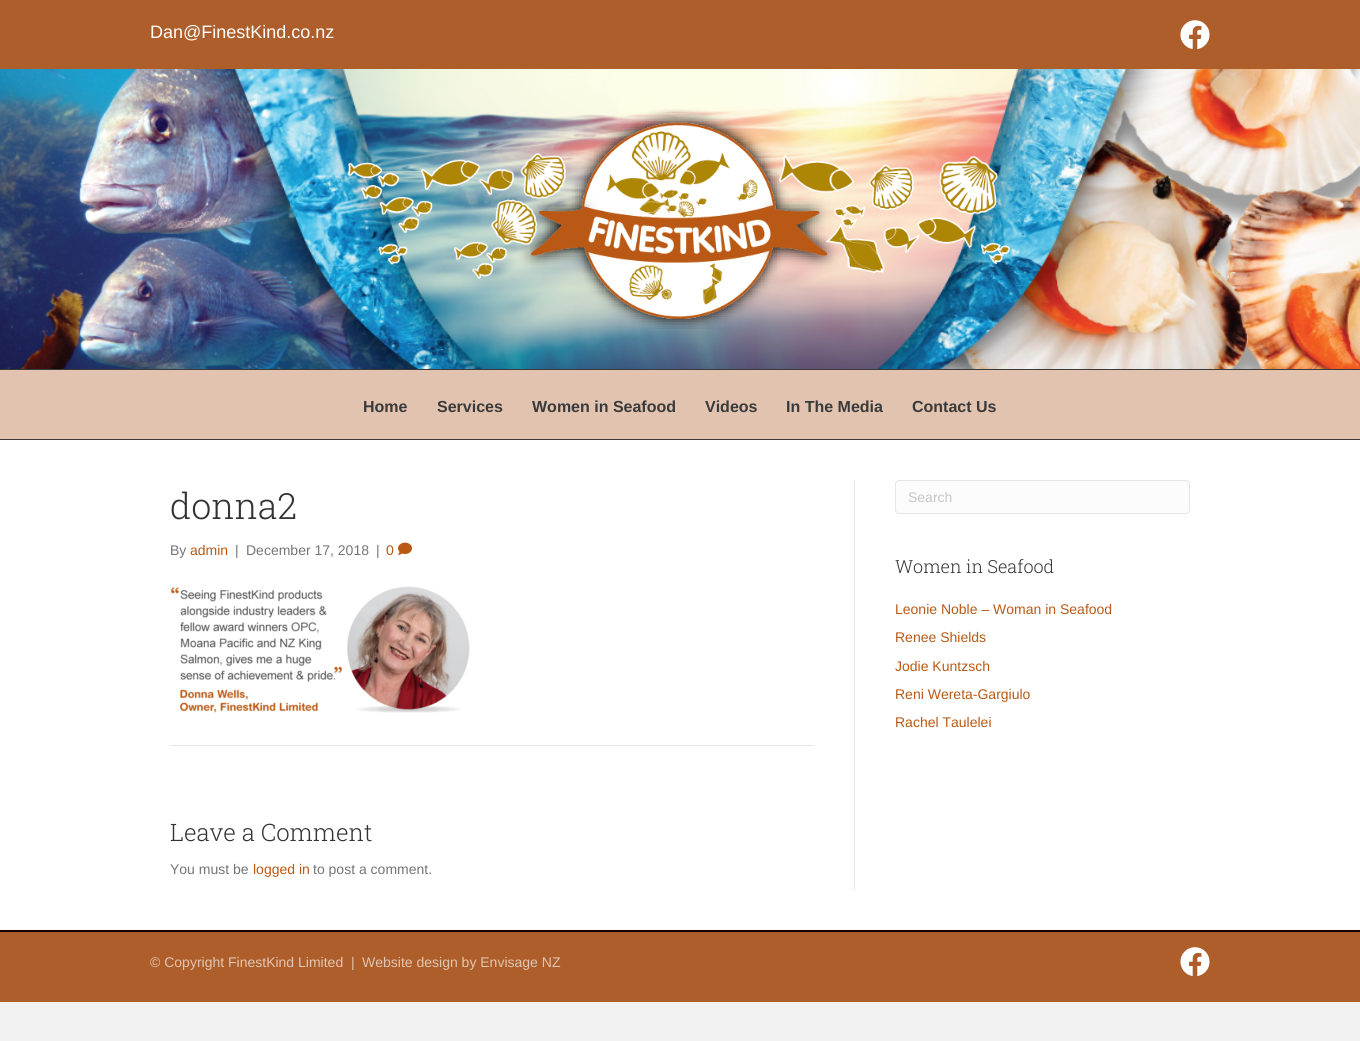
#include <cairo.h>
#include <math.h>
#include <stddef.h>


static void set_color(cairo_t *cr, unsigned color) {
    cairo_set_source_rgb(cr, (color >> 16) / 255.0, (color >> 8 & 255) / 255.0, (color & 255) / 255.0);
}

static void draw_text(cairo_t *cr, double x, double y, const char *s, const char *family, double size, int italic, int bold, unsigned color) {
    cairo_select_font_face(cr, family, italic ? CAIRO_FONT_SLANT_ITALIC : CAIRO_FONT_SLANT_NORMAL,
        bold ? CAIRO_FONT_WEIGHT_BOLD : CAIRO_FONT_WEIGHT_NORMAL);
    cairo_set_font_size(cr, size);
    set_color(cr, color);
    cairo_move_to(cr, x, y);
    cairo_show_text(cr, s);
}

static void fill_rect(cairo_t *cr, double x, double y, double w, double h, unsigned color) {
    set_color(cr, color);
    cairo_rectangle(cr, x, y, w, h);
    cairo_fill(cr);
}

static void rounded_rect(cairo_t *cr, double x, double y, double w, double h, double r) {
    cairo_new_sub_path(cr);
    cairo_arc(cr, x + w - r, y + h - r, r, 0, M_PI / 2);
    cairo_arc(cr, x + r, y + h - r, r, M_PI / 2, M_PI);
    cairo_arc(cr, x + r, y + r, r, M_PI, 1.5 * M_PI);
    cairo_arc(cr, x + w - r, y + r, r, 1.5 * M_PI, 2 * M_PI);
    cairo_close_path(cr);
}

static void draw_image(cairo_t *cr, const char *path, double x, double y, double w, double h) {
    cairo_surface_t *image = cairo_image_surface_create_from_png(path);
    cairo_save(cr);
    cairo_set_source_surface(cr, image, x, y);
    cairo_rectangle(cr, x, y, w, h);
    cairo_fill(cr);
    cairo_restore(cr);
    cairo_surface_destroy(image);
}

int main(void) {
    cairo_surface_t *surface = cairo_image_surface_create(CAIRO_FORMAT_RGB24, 1360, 1041);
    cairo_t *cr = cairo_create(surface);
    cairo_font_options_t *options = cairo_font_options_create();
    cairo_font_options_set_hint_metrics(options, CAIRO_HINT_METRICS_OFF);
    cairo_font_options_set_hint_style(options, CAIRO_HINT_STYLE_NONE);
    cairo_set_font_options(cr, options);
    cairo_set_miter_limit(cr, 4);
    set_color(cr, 0xF2F2F2);
    cairo_paint(cr);
    fill_rect(cr, 0, 0, 1360, 69, 0xAE5E2A);
    draw_text(cr, 150, 38, "Dan@FinestKind.co.nz", "Liberation Sans", 18, 0, 0, 0xFFFFFF);
    draw_image(cr, "assets/img1.png", 1180, 20, 30, 29);
    draw_image(cr, "assets/img2.png", 0, 69, 1360, 300);
    draw_image(cr, "assets/img3.png", 347, 109, 664, 220);
    fill_rect(cr, 0, 370, 1360, 69, 0xE1C3B0);
    fill_rect(cr, 0, 369, 1360, 1, 0x3A3A3A);
    fill_rect(cr, 0, 439, 1360, 1, 0x3A3A3A);
    draw_text(cr, 363, 412, "Home", "Liberation Sans", 16, 0, 1, 0x3A3A3A);
    draw_text(cr, 437, 412, "Services", "Liberation Sans", 16, 0, 1, 0x3A3A3A);
    draw_text(cr, 532, 412, "Women in Seafood", "Liberation Sans", 16, 0, 1, 0x3A3A3A);
    draw_text(cr, 705, 412, "Videos", "Liberation Sans", 16, 0, 1, 0x3A3A3A);
    draw_text(cr, 786, 412, "In The Media", "Liberation Sans", 16, 0, 1, 0x3A3A3A);
    draw_text(cr, 912, 412, "Contact Us", "Liberation Sans", 16, 0, 1, 0x3A3A3A);
    fill_rect(cr, 0, 440, 1360, 490, 0xFFFFFF);
    fill_rect(cr, 854, 480, 1, 410, 0xE6E6E6);
    draw_text(cr, 170, 519, "donna2", "Roboto Slab Light", 36, 0, 0, 0x333333);
    draw_text(cr, 170, 555, "By", "Liberation Sans", 14, 0, 0, 0x757575);
    draw_text(cr, 190, 555, "admin", "Liberation Sans", 14, 0, 0, 0xB95915);
    draw_text(cr, 235, 555, "|", "Liberation Sans", 14, 0, 0, 0x757575);
    draw_text(cr, 246, 555, "December 17, 2018", "Liberation Sans", 14, 0, 0, 0x757575);
    draw_text(cr, 376, 555, "|", "Liberation Sans", 14, 0, 0, 0x757575);
    draw_text(cr, 386, 555, "0", "Liberation Sans", 14, 0, 0, 0xB95915);
    draw_image(cr, "assets/img4.png", 398, 542, 14, 13);
    draw_image(cr, "assets/img5.png", 170, 586, 300, 127);
    fill_rect(cr, 170, 745, 644, 1, 0xE6E6E6);
    draw_text(cr, 170, 841, "Leave a Comment", "Roboto Slab Light", 24, 0, 0, 0x333333);
    draw_text(cr, 170, 874, "You must be", "Liberation Sans", 14, 0, 0, 0x757575);
    draw_text(cr, 253, 874, "logged in", "Liberation Sans", 14, 0, 0, 0xB95915);
    draw_text(cr, 313, 874, "to post a comment.", "Liberation Sans", 14, 0, 0, 0x757575);
    set_color(cr, 0xFCFCFC);
    rounded_rect(cr, 895.5, 480.5, 294, 33, 3.5);
    cairo_fill_preserve(cr);
    set_color(cr, 0xE6E6E6);
    cairo_set_line_width(cr, 1);
    cairo_stroke(cr);
    draw_text(cr, 908, 502, "Search", "Liberation Sans", 14, 0, 0, 0xC6C6C6);
    draw_text(cr, 895, 573, "Women in Seafood", "Roboto Slab Light", 18, 0, 0, 0x333333);
    draw_text(cr, 895, 614, "Leonie Noble – Woman in Seafood", "Liberation Sans", 14, 0, 0, 0xB95915);
    draw_text(cr, 895, 642, "Renee Shields", "Liberation Sans", 14, 0, 0, 0xB95915);
    draw_text(cr, 895, 671, "Jodie Kuntzsch", "Liberation Sans", 14, 0, 0, 0xB95915);
    draw_text(cr, 895, 699, "Reni Wereta-Gargiulo", "Liberation Sans", 14, 0, 0, 0xB95915);
    draw_text(cr, 895, 727, "Rachel Taulelei", "Liberation Sans", 14, 0, 0, 0xB95915);
    fill_rect(cr, 0, 932, 1360, 70, 0xAE5E2A);
    fill_rect(cr, 0, 930, 1360, 2, 0x190000);
    draw_text(cr, 150, 967, "© Copyright FinestKind Limited  |", "Liberation Sans", 14, 0, 0, 0xE2C5B2);
    draw_text(cr, 362, 967, "Website design by Envisage NZ", "Liberation Sans", 14, 0, 0, 0xE2C5B2);
    draw_image(cr, "assets/img1.png", 1180, 947, 30, 29);
    cairo_surface_write_to_png(surface, "output.png");
    cairo_font_options_destroy(options);
    cairo_destroy(cr);
    cairo_surface_destroy(surface);
    return 0;
}
